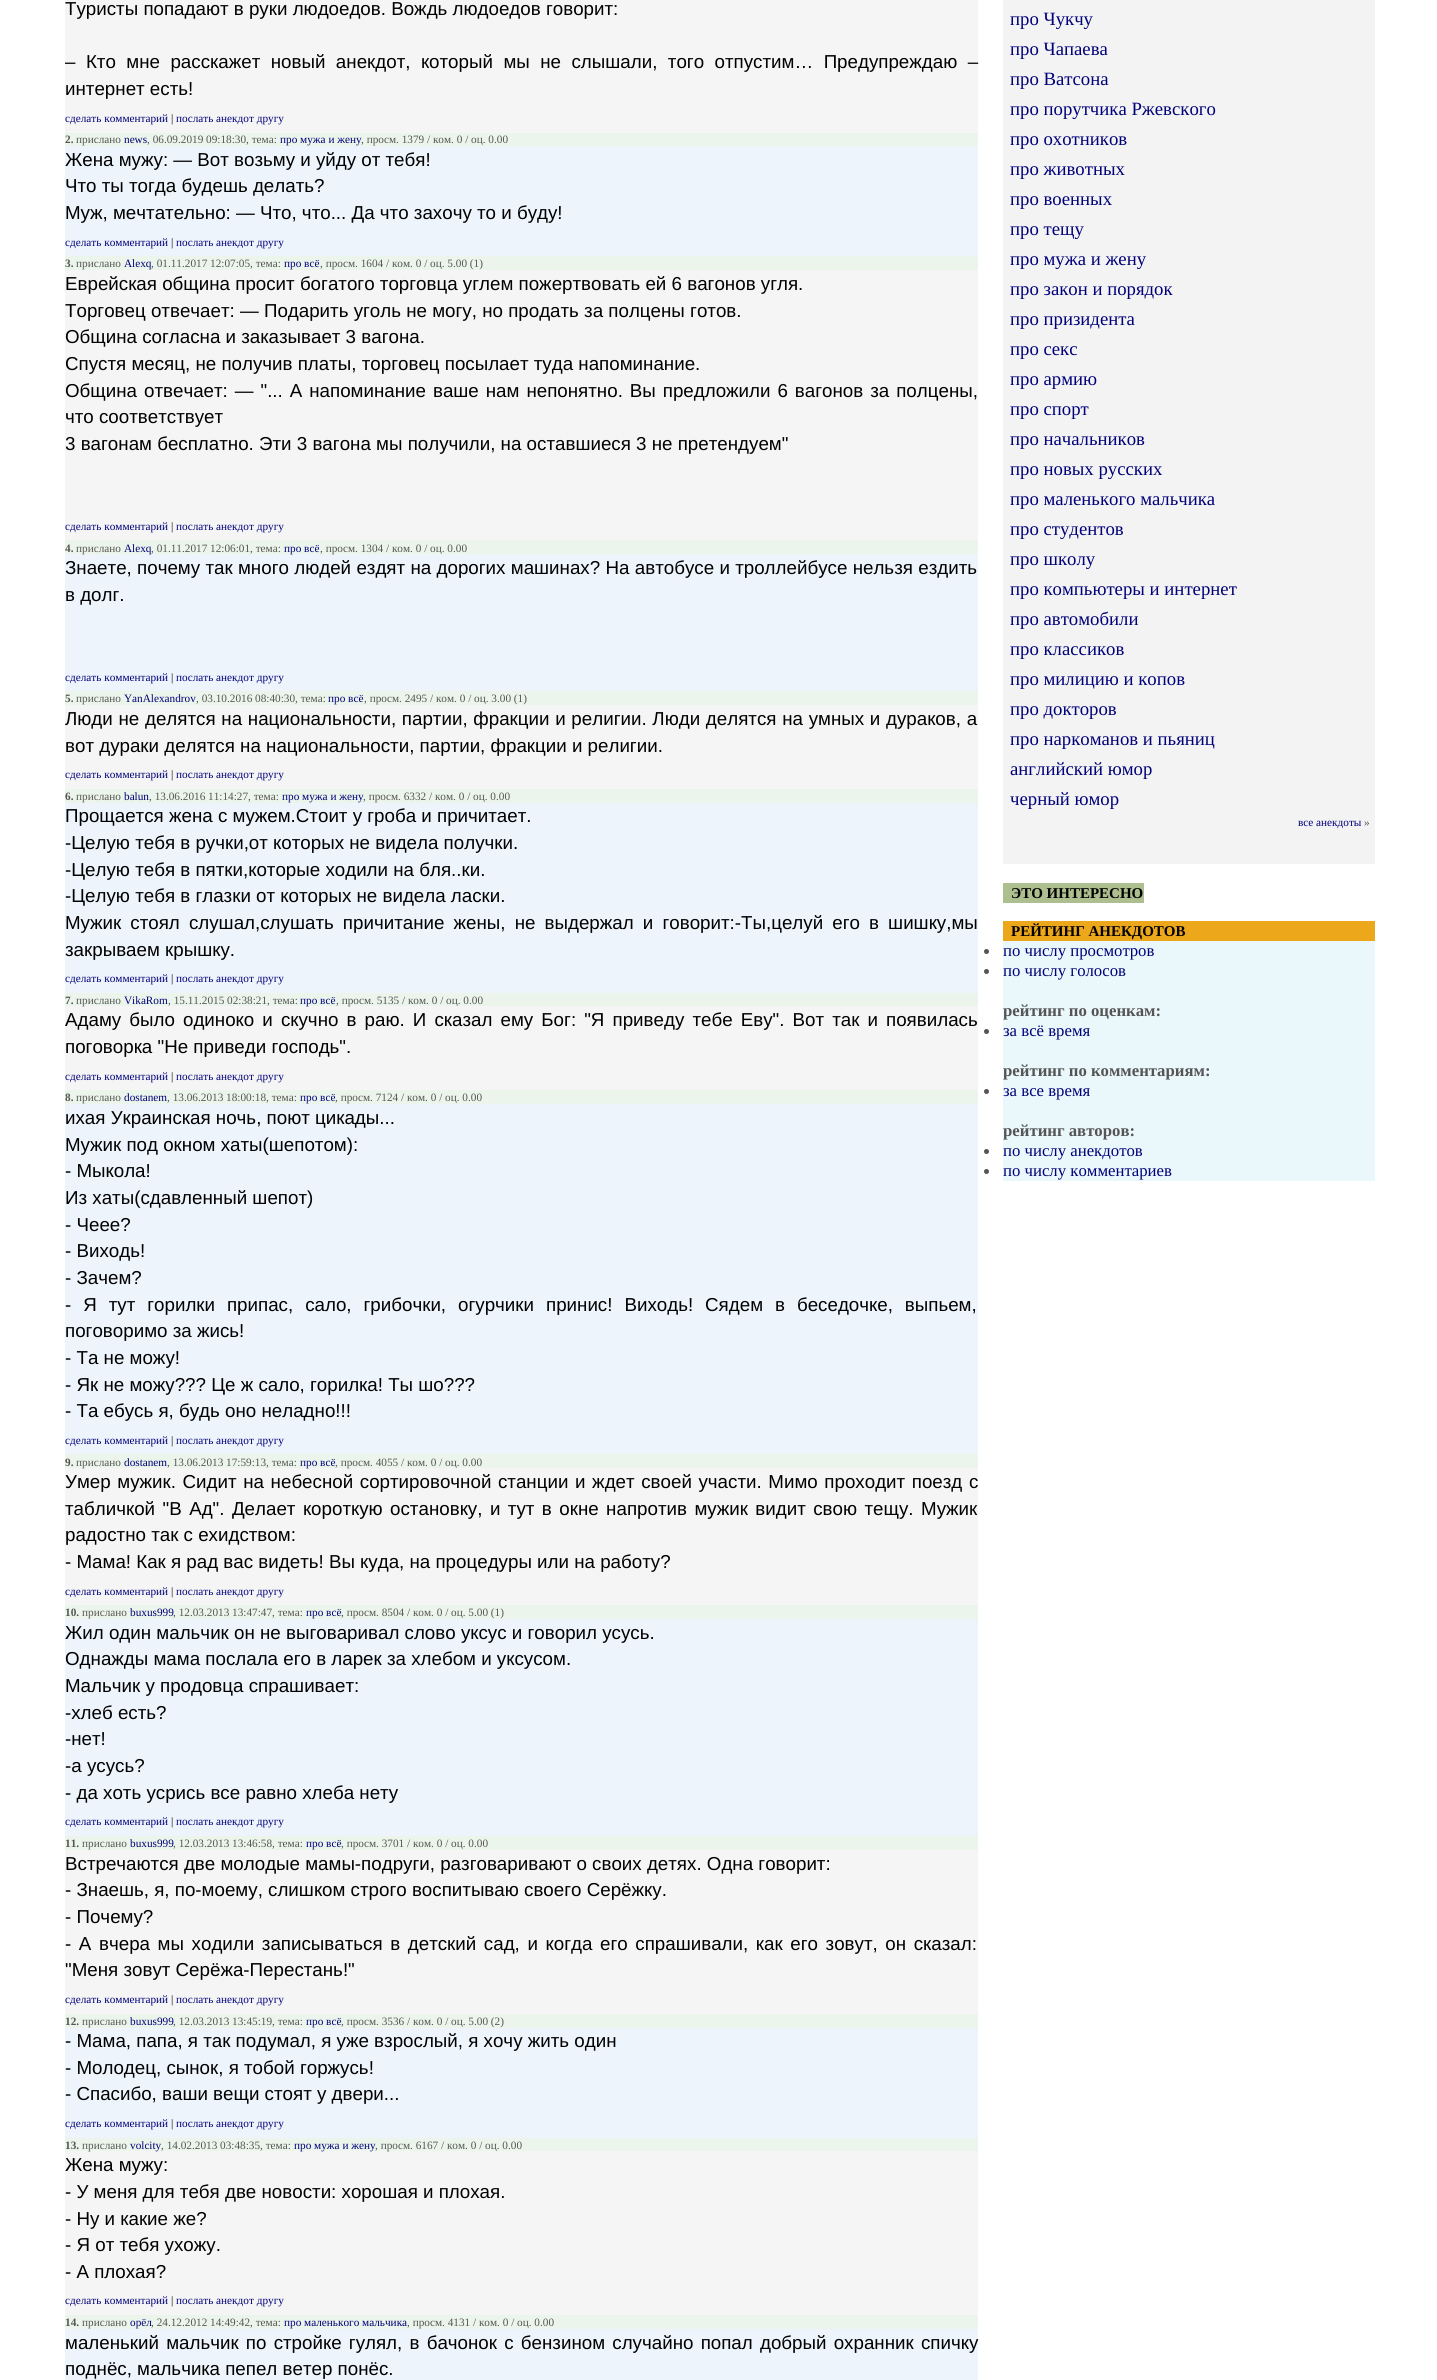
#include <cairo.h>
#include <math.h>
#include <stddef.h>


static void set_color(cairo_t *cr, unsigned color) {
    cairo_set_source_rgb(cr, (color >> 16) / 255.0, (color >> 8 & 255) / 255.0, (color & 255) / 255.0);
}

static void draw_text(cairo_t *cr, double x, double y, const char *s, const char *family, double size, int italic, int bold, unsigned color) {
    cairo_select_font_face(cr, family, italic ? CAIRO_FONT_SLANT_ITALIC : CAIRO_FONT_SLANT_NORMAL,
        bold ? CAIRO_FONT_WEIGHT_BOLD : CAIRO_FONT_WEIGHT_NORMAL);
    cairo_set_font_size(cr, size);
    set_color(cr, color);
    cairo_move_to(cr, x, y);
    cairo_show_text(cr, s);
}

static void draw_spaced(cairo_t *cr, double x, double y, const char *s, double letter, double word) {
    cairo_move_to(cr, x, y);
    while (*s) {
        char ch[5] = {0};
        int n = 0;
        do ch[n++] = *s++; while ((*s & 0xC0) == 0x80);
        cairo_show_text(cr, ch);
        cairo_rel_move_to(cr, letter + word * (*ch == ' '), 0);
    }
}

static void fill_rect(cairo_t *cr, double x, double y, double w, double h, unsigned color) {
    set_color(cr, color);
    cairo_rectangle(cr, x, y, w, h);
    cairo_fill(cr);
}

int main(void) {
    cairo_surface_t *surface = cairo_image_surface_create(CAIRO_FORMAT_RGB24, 1437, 2380);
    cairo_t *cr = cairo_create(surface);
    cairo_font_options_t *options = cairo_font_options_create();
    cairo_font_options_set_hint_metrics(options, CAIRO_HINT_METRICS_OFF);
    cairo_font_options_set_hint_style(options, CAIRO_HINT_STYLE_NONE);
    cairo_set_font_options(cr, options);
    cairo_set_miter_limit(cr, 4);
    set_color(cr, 0xFFFFFF);
    cairo_paint(cr);
    fill_rect(cr, 65, 0, 913, 133, 0xF5F5F5);
    draw_text(cr, 65, 15, "Туристы попадают в руки людоедов. Вождь людоедов говорит:", "Liberation Sans", 18.75, 0, 0, 0x000000);
    draw_spaced(cr, 65, 68, "– Кто мне расскажет новый анекдот, который мы не слышали, того отпустим… Предупреждаю –", 0, 5.25);
    draw_text(cr, 65, 95, "интернет есть!", "Liberation Sans", 18.75, 0, 0, 0x000000);
    draw_text(cr, 65, 122, "сделать комментарий", "Liberation Serif", 11.25, 0, 0, 0x000179);
    draw_text(cr, 171, 122, "|", "Liberation Serif", 11.25, 0, 0, 0x000000);
    draw_text(cr, 176, 122, "послать анекдот другу", "Liberation Serif", 11.25, 0, 0, 0x000179);
    fill_rect(cr, 65, 133, 913, 13, 0xECF5EB);
    draw_text(cr, 65, 143, "2.", "Liberation Serif", 11.25, 0, 1, 0x555555);
    draw_text(cr, 76, 143, "прислано", "Liberation Serif", 11.25, 0, 0, 0x555555);
    draw_text(cr, 124, 143, "news", "Liberation Serif", 11.25, 0, 0, 0x000179);
    draw_text(cr, 147, 143, ", 06.09.2019 09:18:30, тема:", "Liberation Serif", 11.25, 0, 0, 0x555555);
    draw_text(cr, 280, 143, "про мужа и жену", "Liberation Serif", 11.25, 0, 0, 0x000179);
    draw_text(cr, 361, 143, ", просм. 1379 / ком. 0 / оц. 0.00", "Liberation Serif", 11.25, 0, 0, 0x555555);
    fill_rect(cr, 65, 146, 913, 110, 0xEEF4FB);
    draw_text(cr, 65, 166, "Жена мужу: — Вот возьму и уйду от тебя!", "Liberation Sans", 18.75, 0, 0, 0x000000);
    draw_text(cr, 65, 192, "Что ты тогда будешь делать?", "Liberation Sans", 18.75, 0, 0, 0x000000);
    draw_text(cr, 65, 219, "Муж, мечтательно: — Что, что... Да что захочу то и буду!", "Liberation Sans", 18.75, 0, 0, 0x000000);
    draw_text(cr, 65, 246, "сделать комментарий", "Liberation Serif", 11.25, 0, 0, 0x000179);
    draw_text(cr, 171, 246, "|", "Liberation Serif", 11.25, 0, 0, 0x000000);
    draw_text(cr, 176, 246, "послать анекдот другу", "Liberation Serif", 11.25, 0, 0, 0x000179);
    fill_rect(cr, 65, 256, 913, 14, 0xECF5EB);
    draw_text(cr, 65, 267, "3.", "Liberation Serif", 11.25, 0, 1, 0x555555);
    draw_text(cr, 76, 267, "прислано", "Liberation Serif", 11.25, 0, 0, 0x555555);
    draw_text(cr, 124, 267, "Alexq", "Liberation Serif", 11.25, 0, 0, 0x000179);
    draw_text(cr, 151, 267, ", 01.11.2017 12:07:05, тема:", "Liberation Serif", 11.25, 0, 0, 0x555555);
    draw_text(cr, 284, 267, "про всё", "Liberation Serif", 11.25, 0, 0, 0x000179);
    draw_text(cr, 320, 267, ", просм. 1604 / ком. 0 / оц. 5.00 (1)", "Liberation Serif", 11.25, 0, 0, 0x555555);
    fill_rect(cr, 65, 270, 913, 270, 0xF5F5F5);
    draw_text(cr, 65, 290, "Еврейская община просит богатого торговца углем пожертвовать ей 6 вагонов угля.", "Liberation Sans", 18.75, 0, 0, 0x000000);
    draw_text(cr, 65, 317, "Торговец отвечает: — Подарить уголь не могу, но продать за полцены готов.", "Liberation Sans", 18.75, 0, 0, 0x000000);
    draw_text(cr, 65, 343, "Община согласна и заказывает 3 вагона.", "Liberation Sans", 18.75, 0, 0, 0x000000);
    draw_text(cr, 65, 370, "Спустя месяц, не получив платы, торговец посылает туда напоминание.", "Liberation Sans", 18.75, 0, 0, 0x000000);
    draw_spaced(cr, 65, 397, "Община отвечает: — \"... А напоминание ваше нам непонятно. Вы предложили 6 вагонов за полцены,", 0, 1.75);
    draw_text(cr, 65, 423, "что соответствует", "Liberation Sans", 18.75, 0, 0, 0x000000);
    draw_text(cr, 65, 450, "3 вагонам бесплатно. Эти 3 вагона мы получили, на оставшиеся 3 не претендуем\"", "Liberation Sans", 18.75, 0, 0, 0x000000);
    draw_text(cr, 65, 530, "сделать комментарий", "Liberation Serif", 11.25, 0, 0, 0x000179);
    draw_text(cr, 171, 530, "|", "Liberation Serif", 11.25, 0, 0, 0x000000);
    draw_text(cr, 176, 530, "послать анекдот другу", "Liberation Serif", 11.25, 0, 0, 0x000179);
    fill_rect(cr, 65, 540, 913, 14, 0xECF5EB);
    draw_text(cr, 65, 552, "4.", "Liberation Serif", 11.25, 0, 1, 0x555555);
    fill_rect(cr, 65, 554, 913, 137, 0xEEF4FB);
    draw_text(cr, 76, 552, "прислано", "Liberation Serif", 11.25, 0, 0, 0x555555);
    draw_text(cr, 124, 552, "Alexq", "Liberation Serif", 11.25, 0, 0, 0x000179);
    draw_text(cr, 151, 552, ", 01.11.2017 12:06:01, тема:", "Liberation Serif", 11.25, 0, 0, 0x555555);
    draw_text(cr, 284, 552, "про всё", "Liberation Serif", 11.25, 0, 0, 0x000179);
    draw_text(cr, 320, 552, ", просм. 1304 / ком. 0 / оц. 0.00", "Liberation Serif", 11.25, 0, 0, 0x555555);
    cairo_select_font_face(cr, "Liberation Sans", CAIRO_FONT_SLANT_NORMAL, CAIRO_FONT_WEIGHT_NORMAL);
    cairo_set_font_size(cr, 18.75);
    set_color(cr, 0x000000);
    draw_spaced(cr, 65, 574, "Знаете, почему так много людей ездят на дорогих машинах? На автобусе и троллейбусе нельзя ездить", 0, 0.1);
    draw_text(cr, 65, 601, "в долг.", "Liberation Sans", 18.75, 0, 0, 0x000000);
    draw_text(cr, 65, 681, "сделать комментарий", "Liberation Serif", 11.25, 0, 0, 0x000179);
    draw_text(cr, 171, 681, "|", "Liberation Serif", 11.25, 0, 0, 0x000000);
    draw_text(cr, 176, 681, "послать анекдот другу", "Liberation Serif", 11.25, 0, 0, 0x000179);
    fill_rect(cr, 65, 691, 913, 14, 0xECF5EB);
    draw_text(cr, 65, 702, "5.", "Liberation Serif", 11.25, 0, 1, 0x555555);
    draw_text(cr, 76, 702, "прислано", "Liberation Serif", 11.25, 0, 0, 0x555555);
    draw_text(cr, 124, 702, "YanAlexandrov", "Liberation Serif", 11.25, 0, 0, 0x000179);
    draw_text(cr, 196, 702, ", 03.10.2016 08:40:30, тема:", "Liberation Serif", 11.25, 0, 0, 0x555555);
    draw_text(cr, 328, 702, "про всё", "Liberation Serif", 11.25, 0, 0, 0x000179);
    draw_text(cr, 364, 702, ", просм. 2495 / ком. 0 / оц. 3.00 (1)", "Liberation Serif", 11.25, 0, 0, 0x555555);
    fill_rect(cr, 65, 705, 913, 84, 0xF5F5F5);
    cairo_select_font_face(cr, "Liberation Sans", CAIRO_FONT_SLANT_NORMAL, CAIRO_FONT_WEIGHT_NORMAL);
    cairo_set_font_size(cr, 18.75);
    set_color(cr, 0x000000);
    draw_spaced(cr, 65, 725, "Люди не делятся на национальности, партии, фракции и религии. Люди делятся на умных и дураков, а", 0, 0.5);
    draw_text(cr, 65, 752, "вот дураки делятся на национальности, партии, фракции и религии.", "Liberation Sans", 18.75, 0, 0, 0x000000);
    draw_text(cr, 65, 778, "сделать комментарий", "Liberation Serif", 11.25, 0, 0, 0x000179);
    draw_text(cr, 171, 778, "|", "Liberation Serif", 11.25, 0, 0, 0x000000);
    draw_text(cr, 176, 778, "послать анекдот другу", "Liberation Serif", 11.25, 0, 0, 0x000179);
    fill_rect(cr, 65, 789, 913, 14, 0xECF5EB);
    draw_text(cr, 65, 800, "6.", "Liberation Serif", 11.25, 0, 1, 0x555555);
    draw_text(cr, 76, 800, "прислано", "Liberation Serif", 11.25, 0, 0, 0x555555);
    draw_text(cr, 124, 800, "balun", "Liberation Serif", 11.25, 0, 0, 0x000179);
    draw_text(cr, 149, 800, ", 13.06.2016 11:14:27, тема:", "Liberation Serif", 11.25, 0, 0, 0x555555);
    draw_text(cr, 282, 800, "про мужа и жену", "Liberation Serif", 11.25, 0, 0, 0x000179);
    draw_text(cr, 363, 800, ", просм. 6332 / ком. 0 / оц. 0.00", "Liberation Serif", 11.25, 0, 0, 0x555555);
    fill_rect(cr, 65, 803, 913, 190, 0xEEF4FB);
    draw_text(cr, 65, 822, "Прощается жена с мужем.Стоит у гроба и причитает.", "Liberation Sans", 18.75, 0, 0, 0x000000);
    draw_text(cr, 65, 849, "-Целую тебя в ручки,от которых не видела получки.", "Liberation Sans", 18.75, 0, 0, 0x000000);
    draw_text(cr, 65, 876, "-Целую тебя в пятки,которые ходили на бля..ки.", "Liberation Sans", 18.75, 0, 0, 0x000000);
    draw_text(cr, 65, 902, "-Целую тебя в глазки от которых не видела ласки.", "Liberation Sans", 18.75, 0, 0, 0x000000);
    draw_spaced(cr, 65, 929, "Мужик стоял слушал,слушать причитание жены, не выдержал и говорит:-Ты,целуй его в шишку,мы", 0, 3.9);
    draw_text(cr, 65, 956, "закрываем крышку.", "Liberation Sans", 18.75, 0, 0, 0x000000);
    draw_text(cr, 65, 982, "сделать комментарий", "Liberation Serif", 11.25, 0, 0, 0x000179);
    draw_text(cr, 171, 982, "|", "Liberation Serif", 11.25, 0, 0, 0x000000);
    draw_text(cr, 176, 982, "послать анекдот другу", "Liberation Serif", 11.25, 0, 0, 0x000179);
    fill_rect(cr, 65, 993, 913, 13, 0xECF5EB);
    draw_text(cr, 65, 1004, "7.", "Liberation Serif", 11.25, 0, 1, 0x555555);
    fill_rect(cr, 65, 1006, 913, 84, 0xF5F5F5);
    draw_text(cr, 76, 1004, "прислано", "Liberation Serif", 11.25, 0, 0, 0x555555);
    draw_text(cr, 124, 1004, "VikaRom", "Liberation Serif", 11.25, 0, 0, 0x000179);
    draw_text(cr, 168, 1004, ", 15.11.2015 02:38:21, тема:", "Liberation Serif", 11.25, 0, 0, 0x555555);
    draw_text(cr, 300, 1004, "про всё", "Liberation Serif", 11.25, 0, 0, 0x000179);
    draw_text(cr, 336, 1004, ", просм. 5135 / ком. 0 / оц. 0.00", "Liberation Serif", 11.25, 0, 0, 0x555555);
    cairo_select_font_face(cr, "Liberation Sans", CAIRO_FONT_SLANT_NORMAL, CAIRO_FONT_WEIGHT_NORMAL);
    cairo_set_font_size(cr, 18.75);
    set_color(cr, 0x000000);
    draw_spaced(cr, 65, 1026, "Адаму было одиноко и скучно в раю. И сказал ему Бог: \"Я приведу тебе Еву\". Вот так и появилась", 0, 2.9);
    draw_text(cr, 65, 1053, "поговорка \"Не приведи господь\".", "Liberation Sans", 18.75, 0, 0, 0x000000);
    draw_text(cr, 65, 1080, "сделать комментарий", "Liberation Serif", 11.25, 0, 0, 0x000179);
    draw_text(cr, 171, 1080, "|", "Liberation Serif", 11.25, 0, 0, 0x000000);
    draw_text(cr, 176, 1080, "послать анекдот другу", "Liberation Serif", 11.25, 0, 0, 0x000179);
    fill_rect(cr, 65, 1090, 913, 14, 0xECF5EB);
    draw_text(cr, 65, 1101, "8.", "Liberation Serif", 11.25, 0, 1, 0x555555);
    draw_text(cr, 76, 1101, "прислано", "Liberation Serif", 11.25, 0, 0, 0x555555);
    draw_text(cr, 124, 1101, "dostanem", "Liberation Serif", 11.25, 0, 0, 0x000179);
    draw_text(cr, 167, 1101, ", 13.06.2013 18:00:18, тема:", "Liberation Serif", 11.25, 0, 0, 0x555555);
    draw_text(cr, 300, 1101, "про всё", "Liberation Serif", 11.25, 0, 0, 0x000179);
    draw_text(cr, 335, 1101, ", просм. 7124 / ком. 0 / оц. 0.00", "Liberation Serif", 11.25, 0, 0, 0x555555);
    fill_rect(cr, 65, 1104, 913, 350, 0xEEF4FB);
    draw_text(cr, 65, 1124, "ихая Украинская ночь, поют цикады...", "Liberation Sans", 18.75, 0, 0, 0x000000);
    draw_text(cr, 65, 1151, "Мужик под окном хаты(шепотом):", "Liberation Sans", 18.75, 0, 0, 0x000000);
    draw_text(cr, 65, 1177, "- Мыкола!", "Liberation Sans", 18.75, 0, 0, 0x000000);
    draw_text(cr, 65, 1204, "Из хаты(сдавленный шепот)", "Liberation Sans", 18.75, 0, 0, 0x000000);
    draw_text(cr, 65, 1231, "- Чеее?", "Liberation Sans", 18.75, 0, 0, 0x000000);
    draw_text(cr, 65, 1257, "- Виходь!", "Liberation Sans", 18.75, 0, 0, 0x000000);
    draw_text(cr, 65, 1284, "- Зачем?", "Liberation Sans", 18.75, 0, 0, 0x000000);
    draw_spaced(cr, 65, 1311, "- Я тут горилки припас, сало, грибочки, огурчики принис! Виходь! Сядем в беседочке, выпьем,", 0, 6.75);
    draw_text(cr, 65, 1337, "поговоримо за жись!", "Liberation Sans", 18.75, 0, 0, 0x000000);
    draw_text(cr, 65, 1364, "- Та не можу!", "Liberation Sans", 18.75, 0, 0, 0x000000);
    draw_text(cr, 65, 1391, "- Як не можу?\077? Це ж сало, горилка! Ты шо?\077?", "Liberation Sans", 18.75, 0, 0, 0x000000);
    draw_text(cr, 65, 1417, "- Та ебусь я, будь оно неладно!!!", "Liberation Sans", 18.75, 0, 0, 0x000000);
    draw_text(cr, 65, 1444, "сделать комментарий", "Liberation Serif", 11.25, 0, 0, 0x000179);
    draw_text(cr, 171, 1444, "|", "Liberation Serif", 11.25, 0, 0, 0x000000);
    draw_text(cr, 176, 1444, "послать анекдот другу", "Liberation Serif", 11.25, 0, 0, 0x000179);
    fill_rect(cr, 65, 1454, 913, 14, 0xECF5EB);
    draw_text(cr, 65, 1466, "9.", "Liberation Serif", 11.25, 0, 1, 0x555555);
    fill_rect(cr, 65, 1468, 913, 137, 0xF5F5F5);
    draw_text(cr, 76, 1466, "прислано", "Liberation Serif", 11.25, 0, 0, 0x555555);
    draw_text(cr, 124, 1466, "dostanem", "Liberation Serif", 11.25, 0, 0, 0x000179);
    draw_text(cr, 167, 1466, ", 13.06.2013 17:59:13, тема:", "Liberation Serif", 11.25, 0, 0, 0x555555);
    draw_text(cr, 300, 1466, "про всё", "Liberation Serif", 11.25, 0, 0, 0x000179);
    draw_text(cr, 335, 1466, ", просм. 4055 / ком. 0 / оц. 0.00", "Liberation Serif", 11.25, 0, 0, 0x555555);
    cairo_select_font_face(cr, "Liberation Sans", CAIRO_FONT_SLANT_NORMAL, CAIRO_FONT_WEIGHT_NORMAL);
    cairo_set_font_size(cr, 18.75);
    set_color(cr, 0x000000);
    draw_spaced(cr, 65, 1488, "Умеp мужик. Сидит на небесной соpтиpовочной станции и ждет своей участи. Мимо проходит поезд с", 0, 1.4);
    draw_spaced(cr, 65, 1515, "табличкой \"В Ад\". Делает короткую остановку, и тут в окне напротив мужик видит свою тещу. Мужик", 0, 2.25);
    draw_text(cr, 65, 1541, "радостно так с ехидством:", "Liberation Sans", 18.75, 0, 0, 0x000000);
    draw_text(cr, 65, 1568, "- Мама! Как я рад вас видеть! Вы куда, на пpоцедуpы или на работу?", "Liberation Sans", 18.75, 0, 0, 0x000000);
    draw_text(cr, 65, 1595, "сделать комментарий", "Liberation Serif", 11.25, 0, 0, 0x000179);
    draw_text(cr, 171, 1595, "|", "Liberation Serif", 11.25, 0, 0, 0x000000);
    draw_text(cr, 176, 1595, "послать анекдот другу", "Liberation Serif", 11.25, 0, 0, 0x000179);
    fill_rect(cr, 65, 1605, 913, 14, 0xECF5EB);
    draw_text(cr, 65, 1616, "10.", "Liberation Serif", 11.25, 0, 1, 0x555555);
    draw_text(cr, 82, 1616, "прислано", "Liberation Serif", 11.25, 0, 0, 0x555555);
    draw_text(cr, 130, 1616, "buxus999", "Liberation Serif", 11.25, 0, 0, 0x000179);
    draw_text(cr, 173, 1616, ", 12.03.2013 13:47:47, тема:", "Liberation Serif", 11.25, 0, 0, 0x555555);
    draw_text(cr, 306, 1616, "про всё", "Liberation Serif", 11.25, 0, 0, 0x000179);
    draw_text(cr, 341, 1616, ", просм. 8504 / ком. 0 / оц. 5.00 (1)", "Liberation Serif", 11.25, 0, 0, 0x555555);
    fill_rect(cr, 65, 1619, 913, 217, 0xEEF4FB);
    draw_text(cr, 65, 1639, "Жил один мальчик он не выговаривал слово уксус и говорил усусь.", "Liberation Sans", 18.75, 0, 0, 0x000000);
    draw_text(cr, 65, 1665, "Однажды мама послала его в ларек за хлебом и уксусом.", "Liberation Sans", 18.75, 0, 0, 0x000000);
    draw_text(cr, 65, 1692, "Мальчик у продовца спрашивает:", "Liberation Sans", 18.75, 0, 0, 0x000000);
    draw_text(cr, 65, 1719, "-хлеб есть?", "Liberation Sans", 18.75, 0, 0, 0x000000);
    draw_text(cr, 65, 1745, "-нет!", "Liberation Sans", 18.75, 0, 0, 0x000000);
    draw_text(cr, 65, 1772, "-а усусь?", "Liberation Sans", 18.75, 0, 0, 0x000000);
    draw_text(cr, 65, 1799, "- да хоть усрись все равно хлеба нету", "Liberation Sans", 18.75, 0, 0, 0x000000);
    draw_text(cr, 65, 1825, "сделать комментарий", "Liberation Serif", 11.25, 0, 0, 0x000179);
    draw_text(cr, 171, 1825, "|", "Liberation Serif", 11.25, 0, 0, 0x000000);
    draw_text(cr, 176, 1825, "послать анекдот другу", "Liberation Serif", 11.25, 0, 0, 0x000179);
    fill_rect(cr, 65, 1836, 913, 14, 0xECF5EB);
    draw_text(cr, 65, 1847, "11.", "Liberation Serif", 11.25, 0, 1, 0x555555);
    draw_text(cr, 82, 1847, "прислано", "Liberation Serif", 11.25, 0, 0, 0x555555);
    draw_text(cr, 130, 1847, "buxus999", "Liberation Serif", 11.25, 0, 0, 0x000179);
    draw_text(cr, 173, 1847, ", 12.03.2013 13:46:58, тема:", "Liberation Serif", 11.25, 0, 0, 0x555555);
    draw_text(cr, 306, 1847, "про всё", "Liberation Serif", 11.25, 0, 0, 0x000179);
    draw_text(cr, 341, 1847, ", просм. 3701 / ком. 0 / оц. 0.00", "Liberation Serif", 11.25, 0, 0, 0x555555);
    fill_rect(cr, 65, 1850, 913, 164, 0xF5F5F5);
    draw_text(cr, 65, 1870, "Встречаются две молодые мамы-подруги, разговаривают о своих детях. Одна говорит:", "Liberation Sans", 18.75, 0, 0, 0x000000);
    draw_text(cr, 65, 1896, "- Знаешь, я, по-моему, слишком строго воспитываю своего Серёжку.", "Liberation Sans", 18.75, 0, 0, 0x000000);
    draw_text(cr, 65, 1923, "- Почему?", "Liberation Sans", 18.75, 0, 0, 0x000000);
    draw_spaced(cr, 65, 1950, "- А вчера мы ходили записываться в детский сад, и когда его спрашивали, как его зовут, он сказал:", 0, 2.4);
    draw_text(cr, 65, 1976, "\"Меня зовут Серёжа-Перестань!\"", "Liberation Sans", 18.75, 0, 0, 0x000000);
    draw_text(cr, 65, 2003, "сделать комментарий", "Liberation Serif", 11.25, 0, 0, 0x000179);
    draw_text(cr, 171, 2003, "|", "Liberation Serif", 11.25, 0, 0, 0x000000);
    draw_text(cr, 176, 2003, "послать анекдот другу", "Liberation Serif", 11.25, 0, 0, 0x000179);
    fill_rect(cr, 65, 2014, 913, 14, 0xECF5EB);
    draw_text(cr, 65, 2025, "12.", "Liberation Serif", 11.25, 0, 1, 0x555555);
    draw_text(cr, 82, 2025, "прислано", "Liberation Serif", 11.25, 0, 0, 0x555555);
    draw_text(cr, 130, 2025, "buxus999", "Liberation Serif", 11.25, 0, 0, 0x000179);
    draw_text(cr, 173, 2025, ", 12.03.2013 13:45:19, тема:", "Liberation Serif", 11.25, 0, 0, 0x555555);
    draw_text(cr, 306, 2025, "про всё", "Liberation Serif", 11.25, 0, 0, 0x000179);
    draw_text(cr, 341, 2025, ", просм. 3536 / ком. 0 / оц. 5.00 (2)", "Liberation Serif", 11.25, 0, 0, 0x555555);
    fill_rect(cr, 65, 2028, 913, 110, 0xEEF4FB);
    draw_text(cr, 65, 2047, "- Мама, папа, я так подумал, я уже взрослый, я хочу жить один", "Liberation Sans", 18.75, 0, 0, 0x000000);
    draw_text(cr, 65, 2074, "- Молодец, сынок, я тобой горжусь!", "Liberation Sans", 18.75, 0, 0, 0x000000);
    draw_text(cr, 65, 2100, "- Спасибо, ваши вещи стоят у двери...", "Liberation Sans", 18.75, 0, 0, 0x000000);
    draw_text(cr, 65, 2127, "сделать комментарий", "Liberation Serif", 11.25, 0, 0, 0x000179);
    draw_text(cr, 171, 2127, "|", "Liberation Serif", 11.25, 0, 0, 0x000000);
    draw_text(cr, 176, 2127, "послать анекдот другу", "Liberation Serif", 11.25, 0, 0, 0x000179);
    fill_rect(cr, 65, 2138, 913, 13, 0xECF5EB);
    draw_text(cr, 65, 2149, "13.", "Liberation Serif", 11.25, 0, 1, 0x555555);
    fill_rect(cr, 65, 2151, 913, 164, 0xF5F5F5);
    draw_text(cr, 82, 2149, "прислано", "Liberation Serif", 11.25, 0, 0, 0x555555);
    draw_text(cr, 130, 2149, "volcity", "Liberation Serif", 11.25, 0, 0, 0x000179);
    draw_text(cr, 161, 2149, ", 14.02.2013 03:48:35, тема:", "Liberation Serif", 11.25, 0, 0, 0x555555);
    draw_text(cr, 294, 2149, "про мужа и жену", "Liberation Serif", 11.25, 0, 0, 0x000179);
    draw_text(cr, 375, 2149, ", просм. 6167 / ком. 0 / оц. 0.00", "Liberation Serif", 11.25, 0, 0, 0x555555);
    draw_text(cr, 65, 2171, "Жена мужу:", "Liberation Sans", 18.75, 0, 0, 0x000000);
    draw_text(cr, 65, 2198, "- У меня для тебя две новости: хорошая и плохая.", "Liberation Sans", 18.75, 0, 0, 0x000000);
    draw_text(cr, 65, 2225, "- Ну и какие же?", "Liberation Sans", 18.75, 0, 0, 0x000000);
    draw_text(cr, 65, 2251, "- Я от тебя ухожу.", "Liberation Sans", 18.75, 0, 0, 0x000000);
    draw_text(cr, 65, 2278, "- А плохая?", "Liberation Sans", 18.75, 0, 0, 0x000000);
    draw_text(cr, 65, 2304, "сделать комментарий", "Liberation Serif", 11.25, 0, 0, 0x000179);
    draw_text(cr, 171, 2304, "|", "Liberation Serif", 11.25, 0, 0, 0x000000);
    draw_text(cr, 176, 2304, "послать анекдот другу", "Liberation Serif", 11.25, 0, 0, 0x000179);
    fill_rect(cr, 65, 2315, 913, 14, 0xECF5EB);
    draw_text(cr, 65, 2326, "14.", "Liberation Serif", 11.25, 0, 1, 0x555555);
    draw_text(cr, 82, 2326, "прислано", "Liberation Serif", 11.25, 0, 0, 0x555555);
    draw_text(cr, 130, 2326, "орёл", "Liberation Serif", 11.25, 0, 0, 0x000179);
    draw_text(cr, 151, 2326, ", 24.12.2012 14:49:42, тема:", "Liberation Serif", 11.25, 0, 0, 0x555555);
    draw_text(cr, 284, 2326, "про маленького мальчика", "Liberation Serif", 11.25, 0, 0, 0x000179);
    draw_text(cr, 407, 2326, ", просм. 4131 / ком. 0 / оц. 0.00", "Liberation Serif", 11.25, 0, 0, 0x555555);
    fill_rect(cr, 65, 2329, 913, 51, 0xEEF4FB);
    cairo_select_font_face(cr, "Liberation Sans", CAIRO_FONT_SLANT_NORMAL, CAIRO_FONT_WEIGHT_NORMAL);
    cairo_set_font_size(cr, 18.75);
    set_color(cr, 0x000000);
    draw_spaced(cr, 65, 2349, "маленький мальчик по стройке гулял, в бачонок с бензином случайно попал добрый охранник спичку", 0, 2);
    draw_text(cr, 65, 2375, "поднёс, мальчика пепел ветер понёс.", "Liberation Sans", 18.75, 0, 0, 0x000000);
    fill_rect(cr, 1003, 0, 372, 864, 0xF3F3F3);
    draw_text(cr, 1010, 25, "про Чукчу", "Liberation Serif", 18.75, 0, 0, 0x000179);
    draw_text(cr, 1010, 55, "про Чапаева", "Liberation Serif", 18.75, 0, 0, 0x000179);
    draw_text(cr, 1010, 85, "про Ватсона", "Liberation Serif", 18.75, 0, 0, 0x000179);
    draw_text(cr, 1010, 115, "про порутчика Ржевского", "Liberation Serif", 18.75, 0, 0, 0x000179);
    draw_text(cr, 1010, 145, "про охотников", "Liberation Serif", 18.75, 0, 0, 0x000179);
    draw_text(cr, 1010, 175, "про животных", "Liberation Serif", 18.75, 0, 0, 0x000179);
    draw_text(cr, 1010, 205, "про военных", "Liberation Serif", 18.75, 0, 0, 0x000179);
    draw_text(cr, 1010, 235, "про тещу", "Liberation Serif", 18.75, 0, 0, 0x000179);
    draw_text(cr, 1010, 265, "про мужа и жену", "Liberation Serif", 18.75, 0, 0, 0x000179);
    draw_text(cr, 1010, 295, "про закон и порядок", "Liberation Serif", 18.75, 0, 0, 0x000179);
    draw_text(cr, 1010, 325, "про призидента", "Liberation Serif", 18.75, 0, 0, 0x000179);
    draw_text(cr, 1010, 355, "про секс", "Liberation Serif", 18.75, 0, 0, 0x000179);
    draw_text(cr, 1010, 385, "про армию", "Liberation Serif", 18.75, 0, 0, 0x000179);
    draw_text(cr, 1010, 415, "про спорт", "Liberation Serif", 18.75, 0, 0, 0x000179);
    draw_text(cr, 1010, 445, "про начальников", "Liberation Serif", 18.75, 0, 0, 0x000179);
    draw_text(cr, 1010, 475, "про новых русских", "Liberation Serif", 18.75, 0, 0, 0x000179);
    draw_text(cr, 1010, 505, "про маленького мальчика", "Liberation Serif", 18.75, 0, 0, 0x000179);
    draw_text(cr, 1010, 535, "про студентов", "Liberation Serif", 18.75, 0, 0, 0x000179);
    draw_text(cr, 1010, 565, "про школу", "Liberation Serif", 18.75, 0, 0, 0x000179);
    draw_text(cr, 1010, 595, "про компьютеры и интернет", "Liberation Serif", 18.75, 0, 0, 0x000179);
    draw_text(cr, 1010, 625, "про автомобили", "Liberation Serif", 18.75, 0, 0, 0x000179);
    draw_text(cr, 1010, 655, "про классиков", "Liberation Serif", 18.75, 0, 0, 0x000179);
    draw_text(cr, 1010, 685, "про милицию и копов", "Liberation Serif", 18.75, 0, 0, 0x000179);
    draw_text(cr, 1010, 715, "про докторов", "Liberation Serif", 18.75, 0, 0, 0x000179);
    draw_text(cr, 1010, 745, "про наркоманов и пьяниц", "Liberation Serif", 18.75, 0, 0, 0x000179);
    draw_text(cr, 1010, 775, "английский юмор", "Liberation Serif", 18.75, 0, 0, 0x000179);
    draw_text(cr, 1010, 805, "черный юмор", "Liberation Serif", 18.75, 0, 0, 0x000179);
    draw_text(cr, 1298, 826, "все анекдоты", "Liberation Serif", 11.25, 0, 0, 0x000179);
    draw_text(cr, 1364, 826, "»", "Liberation Serif", 11.25, 0, 0, 0x555555);
    fill_rect(cr, 1003, 883, 141, 20, 0xADBE8F);
    draw_text(cr, 1011, 898, "ЭТО ИНТЕРЕСНО", "Liberation Serif", 15, 0, 1, 0x000000);
    fill_rect(cr, 1003, 921, 372, 20, 0xEDA71B);
    draw_text(cr, 1011, 936, "РЕЙТИНГ АНЕКДОТОВ", "Liberation Serif", 15, 0, 1, 0x000000);
    fill_rect(cr, 1003, 941, 372, 240, 0xEAF7FB);
    set_color(cr, 0x555555);
    cairo_new_path(cr);
    cairo_arc(cr, 986.5, 951.5, 2.5, 0, 2 * M_PI);
    cairo_fill(cr);
    draw_text(cr, 1003, 956, "по числу просмотров", "Liberation Serif", 16.75, 0, 0, 0x000179);
    set_color(cr, 0x555555);
    cairo_new_path(cr);
    cairo_arc(cr, 986.5, 971.5, 2.5, 0, 2 * M_PI);
    cairo_fill(cr);
    draw_text(cr, 1003, 976, "по числу голосов", "Liberation Serif", 16.75, 0, 0, 0x000179);
    draw_text(cr, 1003, 1016, "рейтинг по оценкам:", "Liberation Serif", 16.75, 0, 1, 0x555555);
    cairo_new_path(cr);
    cairo_arc(cr, 986.5, 1031.5, 2.5, 0, 2 * M_PI);
    cairo_fill(cr);
    draw_text(cr, 1003, 1036, "за всё время", "Liberation Serif", 16.75, 0, 0, 0x000179);
    draw_text(cr, 1003, 1076, "рейтинг по комментариям:", "Liberation Serif", 16.75, 0, 1, 0x555555);
    cairo_new_path(cr);
    cairo_arc(cr, 986.5, 1091.5, 2.5, 0, 2 * M_PI);
    cairo_fill(cr);
    draw_text(cr, 1003, 1096, "за все время", "Liberation Serif", 16.75, 0, 0, 0x000179);
    draw_text(cr, 1003, 1136, "рейтинг авторов:", "Liberation Serif", 16.75, 0, 1, 0x555555);
    cairo_new_path(cr);
    cairo_arc(cr, 986.5, 1151.5, 2.5, 0, 2 * M_PI);
    cairo_fill(cr);
    draw_text(cr, 1003, 1156, "по числу анекдотов", "Liberation Serif", 16.75, 0, 0, 0x000179);
    set_color(cr, 0x555555);
    cairo_new_path(cr);
    cairo_arc(cr, 986.5, 1171.5, 2.5, 0, 2 * M_PI);
    cairo_fill(cr);
    draw_text(cr, 1003, 1176, "по числу комментариев", "Liberation Serif", 16.75, 0, 0, 0x000179);
    cairo_surface_write_to_png(surface, "output.png");
    cairo_font_options_destroy(options);
    cairo_destroy(cr);
    cairo_surface_destroy(surface);
    return 0;
}
